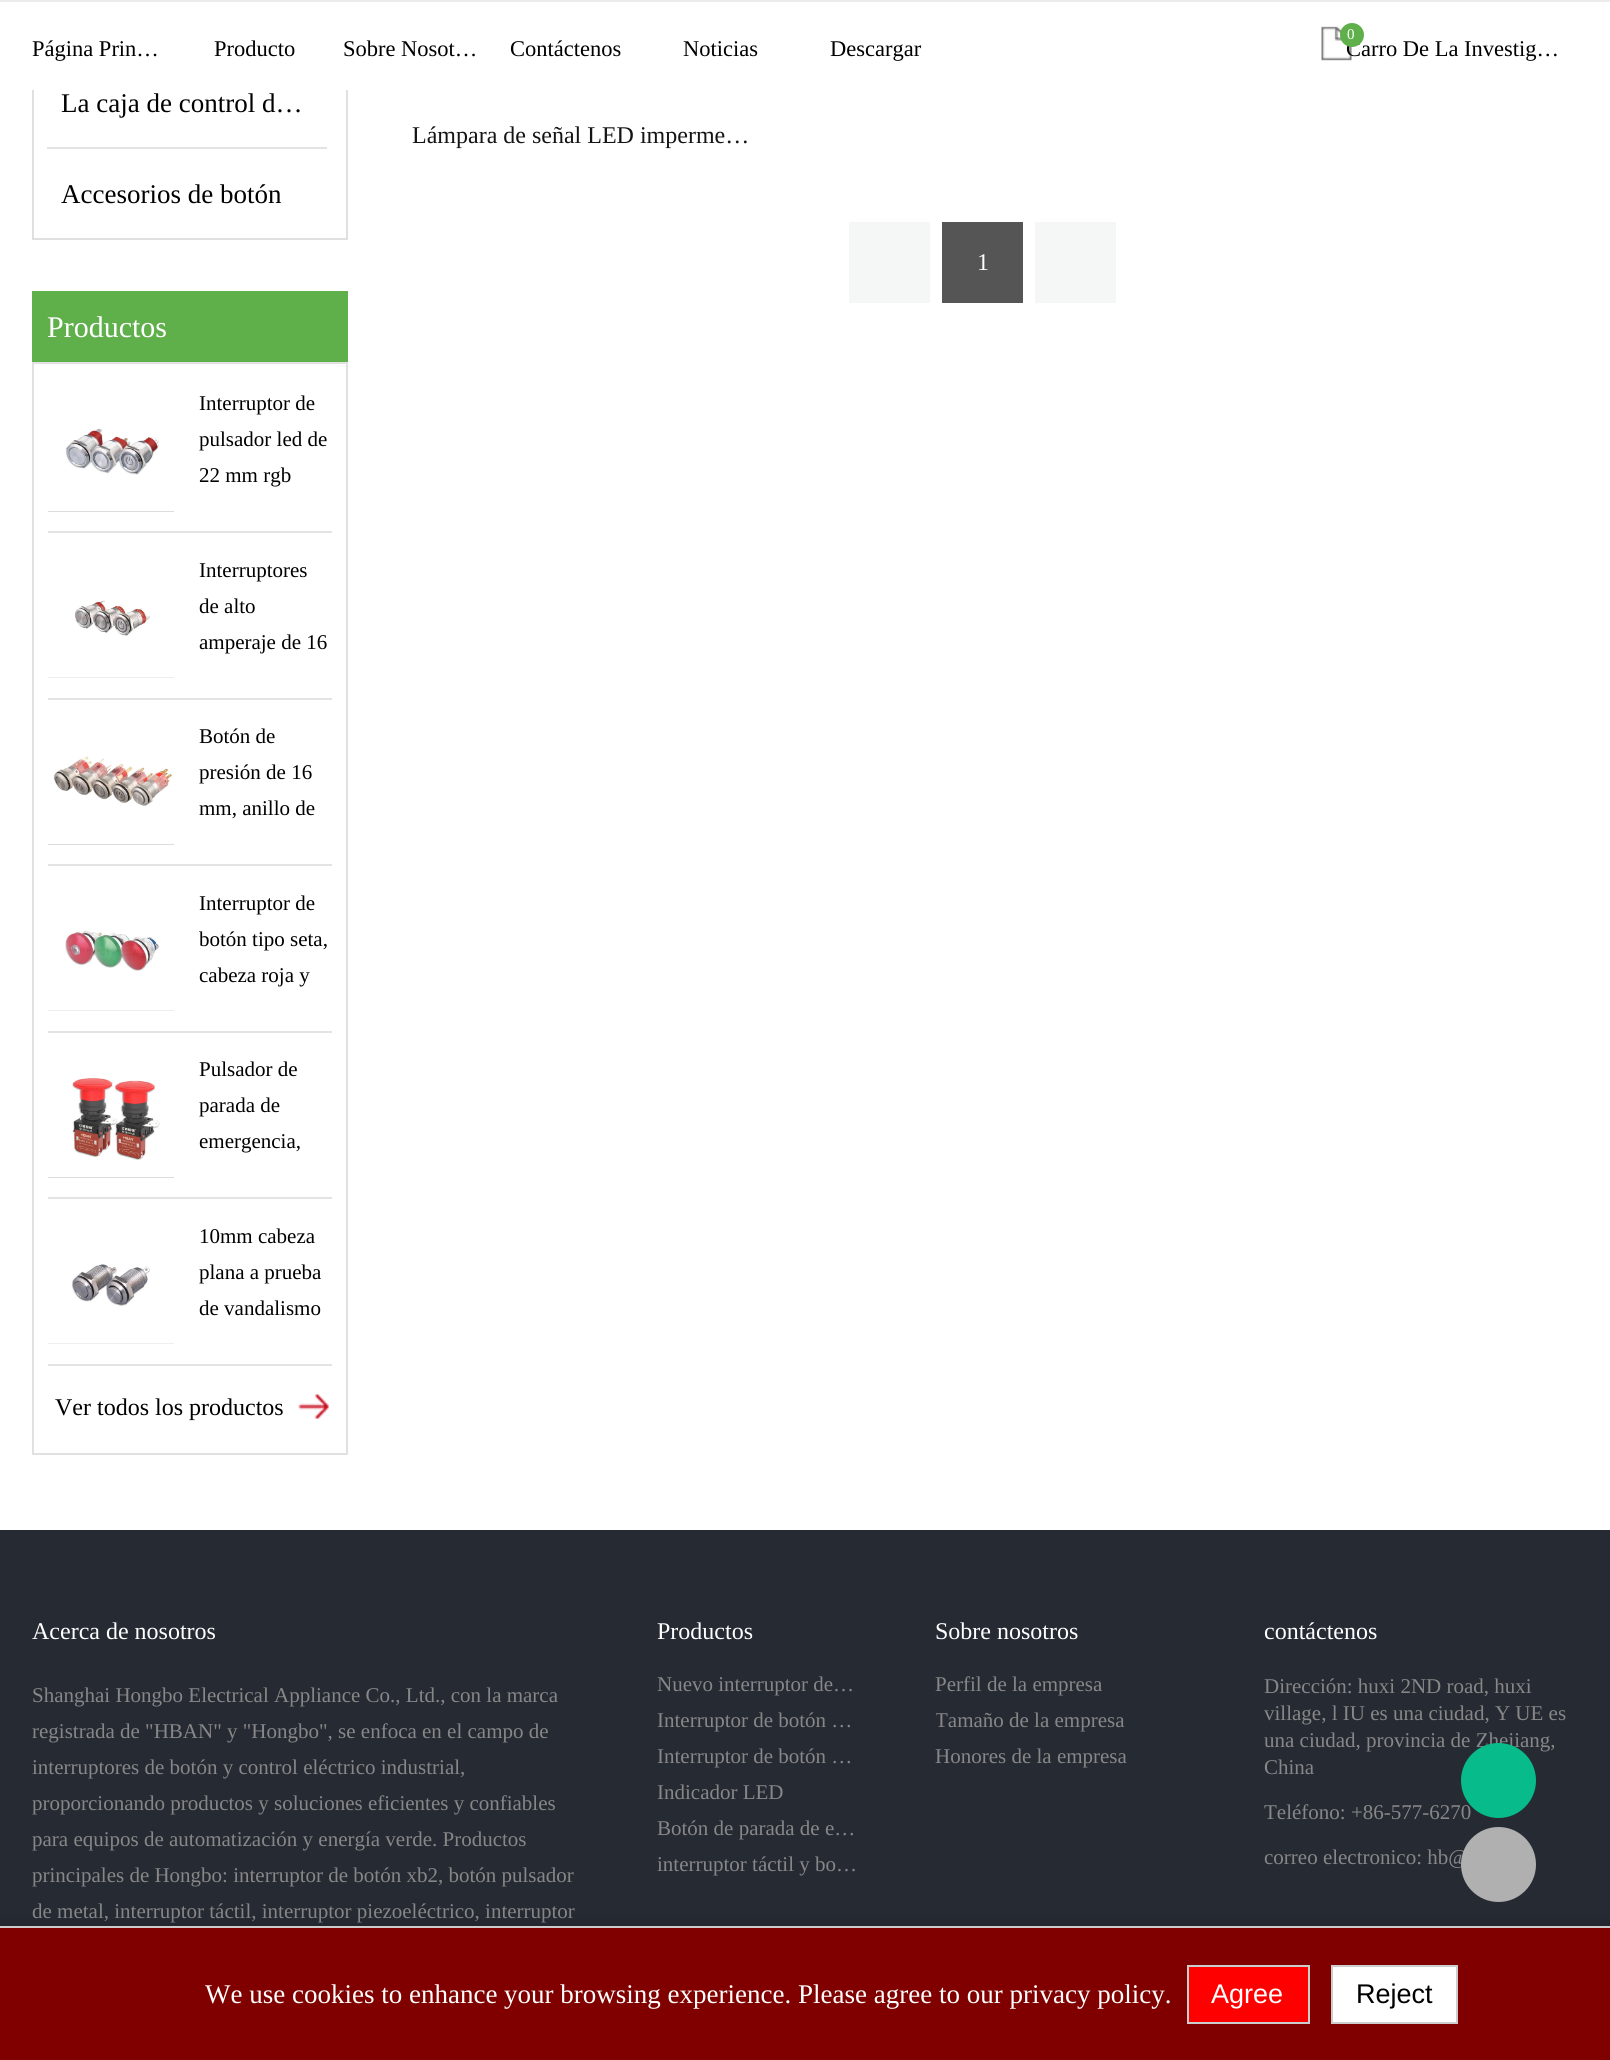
#include <cairo.h>
#include <math.h>
#include <stddef.h>


static void set_color(cairo_t *cr, unsigned color) {
    cairo_set_source_rgb(cr, (color >> 16) / 255.0, (color >> 8 & 255) / 255.0, (color & 255) / 255.0);
}

static void draw_text(cairo_t *cr, double x, double y, const char *s, const char *family, double size, int italic, int bold, unsigned color) {
    cairo_select_font_face(cr, family, italic ? CAIRO_FONT_SLANT_ITALIC : CAIRO_FONT_SLANT_NORMAL,
        bold ? CAIRO_FONT_WEIGHT_BOLD : CAIRO_FONT_WEIGHT_NORMAL);
    cairo_set_font_size(cr, size);
    set_color(cr, color);
    cairo_move_to(cr, x, y);
    cairo_show_text(cr, s);
}

static void fill_rect(cairo_t *cr, double x, double y, double w, double h, unsigned color) {
    set_color(cr, color);
    cairo_rectangle(cr, x, y, w, h);
    cairo_fill(cr);
}

static void rounded_rect(cairo_t *cr, double x, double y, double w, double h, double r) {
    cairo_new_sub_path(cr);
    cairo_arc(cr, x + w - r, y + h - r, r, 0, M_PI / 2);
    cairo_arc(cr, x + r, y + h - r, r, M_PI / 2, M_PI);
    cairo_arc(cr, x + r, y + r, r, M_PI, 1.5 * M_PI);
    cairo_arc(cr, x + w - r, y + r, r, 1.5 * M_PI, 2 * M_PI);
    cairo_close_path(cr);
}

static void draw_shadow(cairo_t *cr, double x, double y, double w, double h, double r, double blur, double alpha) {
    cairo_push_group_with_content(cr, CAIRO_CONTENT_ALPHA);
    cairo_set_operator(cr, CAIRO_OPERATOR_SOURCE);
    for (int i = 15; i >= -15 && fmin(w, h) + blur * i / 3 > 0; i -= 2) {
        double e = blur * i / 6;
        cairo_set_source_rgba(cr, 0, 0, 0, alpha * erfc((i - 1) / 8.5) / 2);
        rounded_rect(cr, x - e, y - e, w + 2 * e, h + 2 * e, fmax(0, fmin(r + e + blur * .6, fmin(w, h) / 2 + e)));
        cairo_fill(cr);
    }
    cairo_pattern_t *soft = cairo_pop_group(cr);
    cairo_mask(cr, soft);
    cairo_pattern_destroy(soft);
}

static void draw_image(cairo_t *cr, const char *path, double x, double y, double w, double h) {
    cairo_surface_t *image = cairo_image_surface_create_from_png(path);
    cairo_save(cr);
    cairo_set_source_surface(cr, image, x, y);
    cairo_rectangle(cr, x, y, w, h);
    cairo_fill(cr);
    cairo_restore(cr);
    cairo_surface_destroy(image);
}

int main(void) {
    cairo_surface_t *surface = cairo_image_surface_create(CAIRO_FORMAT_RGB24, 1610, 2060);
    cairo_t *cr = cairo_create(surface);
    cairo_font_options_t *options = cairo_font_options_create();
    cairo_font_options_set_hint_metrics(options, CAIRO_HINT_METRICS_OFF);
    cairo_font_options_set_hint_style(options, CAIRO_HINT_STYLE_NONE);
    cairo_set_font_options(cr, options);
    cairo_set_miter_limit(cr, 4);
    set_color(cr, 0xFFFFFF);
    cairo_paint(cr);
    cairo_rectangle(cr, 33, -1, 314, 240);
    set_color(cr, 0xE0E0E0);
    cairo_stroke(cr);
    fill_rect(cr, 32, 2, 316, 88, 0xFFFFFF);
    fill_rect(cr, 0, 0, 1610, 2, 0xEBEBEB);
    draw_text(cr, 32, 56, "Página Prin…", "Liberation Serif", 22.5, 0, 0, 0x000000);
    draw_text(cr, 214, 56, "Producto", "Liberation Serif", 22.5, 0, 0, 0x000000);
    draw_text(cr, 343, 56, "Sobre Nosot…", "Liberation Serif", 22.5, 0, 0, 0x000000);
    draw_text(cr, 510, 56, "Contáctenos", "Liberation Serif", 22.5, 0, 0, 0x000000);
    draw_text(cr, 683, 56, "Noticias", "Liberation Serif", 22.5, 0, 0, 0x000000);
    draw_text(cr, 830, 56, "Descargar", "Liberation Serif", 22.5, 0, 0, 0x000000);
    draw_image(cr, "assets/img1.png", 1321, 26, 31, 35);
    draw_text(cr, 1346, 56, "Carro De La Investig…", "Liberation Serif", 22.5, 0, 0, 0x000000);
    set_color(cr, 0x5FAF4B);
    cairo_new_path(cr);
    cairo_arc(cr, 1352, 35, 12, 0, 2 * M_PI);
    cairo_fill(cr);
    draw_text(cr, 1347, 39, "0", "Liberation Serif", 15, 0, 0, 0xFFFFFF);
    draw_text(cr, 61, 112, "La caja de control d…", "Liberation Serif", 27, 0, 0, 0x000000);
    fill_rect(cr, 47, 147, 280, 2, 0xE3E3E3);
    draw_text(cr, 61, 203, "Accesorios de botón", "Liberation Serif", 27, 0, 0, 0x000000);
    fill_rect(cr, 32, 291, 316, 71, 0x5FAF4B);
    draw_text(cr, 47, 337, "Productos", "Liberation Serif", 30, 0, 0, 0xFFFFFF);
    cairo_rectangle(cr, 33, 363, 314, 1091);
    set_color(cr, 0xE1E1E1);
    cairo_stroke(cr);
    fill_rect(cr, 48, 531, 284, 2, 0xE3E3E3);
    fill_rect(cr, 48, 511, 126, 1, 0xDCDCDC);
    draw_image(cr, "assets/img2.png", 48, 386, 126, 125);
    draw_text(cr, 199, 410, "Interruptor de", "Liberation Serif", 21, 0, 0, 0x000000);
    draw_text(cr, 199, 446, "pulsador led de", "Liberation Serif", 21, 0, 0, 0x000000);
    draw_text(cr, 199, 482, "22 mm rgb", "Liberation Serif", 21, 0, 0, 0x000000);
    fill_rect(cr, 48, 698, 284, 2, 0xE3E3E3);
    fill_rect(cr, 48, 677, 126, 1, 0xDCDCDC);
    draw_image(cr, "assets/img3.png", 48, 552, 126, 126);
    draw_text(cr, 199, 577, "Interruptores", "Liberation Serif", 21, 0, 0, 0x000000);
    draw_text(cr, 199, 613, "de alto", "Liberation Serif", 21, 0, 0, 0x000000);
    draw_text(cr, 199, 649, "amperaje de 16", "Liberation Serif", 21, 0, 0, 0x000000);
    fill_rect(cr, 48, 864, 284, 2, 0xE3E3E3);
    fill_rect(cr, 48, 844, 126, 1, 0xDCDCDC);
    draw_image(cr, "assets/img4.png", 48, 719, 126, 125);
    draw_text(cr, 199, 743, "Botón de", "Liberation Serif", 21, 0, 0, 0x000000);
    draw_text(cr, 199, 779, "presión de 16", "Liberation Serif", 21, 0, 0, 0x000000);
    draw_text(cr, 199, 815, "mm, anillo de", "Liberation Serif", 21, 0, 0, 0x000000);
    fill_rect(cr, 48, 1031, 284, 2, 0xE3E3E3);
    fill_rect(cr, 48, 1010, 126, 1, 0xDCDCDC);
    draw_image(cr, "assets/img5.png", 48, 885, 126, 126);
    draw_text(cr, 199, 910, "Interruptor de", "Liberation Serif", 21, 0, 0, 0x000000);
    draw_text(cr, 199, 946, "botón tipo seta,", "Liberation Serif", 21, 0, 0, 0x000000);
    draw_text(cr, 199, 982, "cabeza roja y", "Liberation Serif", 21, 0, 0, 0x000000);
    fill_rect(cr, 48, 1197, 284, 2, 0xE3E3E3);
    fill_rect(cr, 48, 1177, 126, 1, 0xDCDCDC);
    draw_image(cr, "assets/img6.png", 48, 1052, 126, 125);
    draw_text(cr, 199, 1076, "Pulsador de", "Liberation Serif", 21, 0, 0, 0x000000);
    draw_text(cr, 199, 1112, "parada de", "Liberation Serif", 21, 0, 0, 0x000000);
    draw_text(cr, 199, 1148, "emergencia,", "Liberation Serif", 21, 0, 0, 0x000000);
    fill_rect(cr, 48, 1364, 284, 2, 0xE3E3E3);
    fill_rect(cr, 48, 1343, 126, 1, 0xDCDCDC);
    draw_image(cr, "assets/img7.png", 48, 1218, 126, 126);
    draw_text(cr, 199, 1243, "10mm cabeza", "Liberation Serif", 21, 0, 0, 0x000000);
    draw_text(cr, 199, 1279, "plana a prueba", "Liberation Serif", 21, 0, 0, 0x000000);
    draw_text(cr, 199, 1315, "de vandalismo", "Liberation Serif", 21, 0, 0, 0x000000);
    draw_image(cr, "assets/img8.png", 298, 1394, 31, 25);
    draw_text(cr, 55, 1415, "Ver todos los productos", "Liberation Serif", 24, 0, 0, 0x000000);
    draw_text(cr, 412, 143, "Lámpara de señal LED imperme…", "Liberation Serif", 24, 0, 0, 0x141414);
    fill_rect(cr, 849, 222, 81, 81, 0xF5F7F6);
    fill_rect(cr, 942, 222, 81, 81, 0x555555);
    draw_text(cr, 977, 270, "1", "Liberation Serif", 24, 0, 0, 0xFFFFFF);
    fill_rect(cr, 1035, 222, 81, 81, 0xF5F7F6);
    fill_rect(cr, 0, 1530, 1610, 396, 0x252A33);
    draw_text(cr, 32, 1639, "Acerca de nosotros", "Liberation Serif", 24, 0, 0, 0xFFFFFF);
    draw_text(cr, 32, 1702, "Shanghai Hongbo Electrical Appliance Co., Ltd., con la marca", "Liberation Serif", 21, 0, 0, 0x878787);
    draw_text(cr, 32, 1738, "registrada de \"HBAN\" y \"Hongbo\", se enfoca en el campo de", "Liberation Serif", 21, 0, 0, 0x878787);
    draw_text(cr, 32, 1774, "interruptores de botón y control eléctrico industrial,", "Liberation Serif", 21, 0, 0, 0x878787);
    draw_text(cr, 32, 1810, "proporcionando productos y soluciones eficientes y confiables", "Liberation Serif", 21, 0, 0, 0x878787);
    draw_text(cr, 32, 1846, "para equipos de automatización y energía verde. Productos", "Liberation Serif", 21, 0, 0, 0x878787);
    draw_text(cr, 32, 1882, "principales de Hongbo: interruptor de botón xb2, botón pulsador", "Liberation Serif", 21, 0, 0, 0x878787);
    draw_text(cr, 32, 1918, "de metal, interruptor táctil, interruptor piezoeléctrico, interruptor", "Liberation Serif", 21, 0, 0, 0x878787);
    draw_text(cr, 657, 1639, "Productos", "Liberation Serif", 24, 0, 0, 0xFFFFFF);
    draw_text(cr, 657, 1691, "Nuevo interruptor de…", "Liberation Serif", 21, 0, 0, 0x878787);
    draw_text(cr, 657, 1727, "Interruptor de botón …", "Liberation Serif", 21, 0, 0, 0x878787);
    draw_text(cr, 657, 1763, "Interruptor de botón …", "Liberation Serif", 21, 0, 0, 0x878787);
    draw_text(cr, 657, 1799, "Indicador LED", "Liberation Serif", 21, 0, 0, 0x878787);
    draw_text(cr, 657, 1835, "Botón de parada de e…", "Liberation Serif", 21, 0, 0, 0x878787);
    draw_text(cr, 657, 1871, "interruptor táctil y bo…", "Liberation Serif", 21, 0, 0, 0x878787);
    draw_text(cr, 935, 1639, "Sobre nosotros", "Liberation Serif", 24, 0, 0, 0xFFFFFF);
    draw_text(cr, 935, 1691, "Perfil de la empresa", "Liberation Serif", 21, 0, 0, 0x878787);
    cairo_save(cr);
    cairo_rectangle(cr, 936, 1703, 201, 36);
    cairo_clip(cr);
    draw_text(cr, 935, 1727, "Tamaño de la empresa", "Liberation Serif", 21, 0, 0, 0x878787);
    cairo_restore(cr);
    draw_text(cr, 935, 1763, "Honores de la empresa", "Liberation Serif", 21, 0, 0, 0x878787);
    draw_text(cr, 1264, 1639, "contáctenos", "Liberation Serif", 24, 0, 0, 0xFFFFFF);
    draw_text(cr, 1264, 1693, "Dirección: huxi 2ND road, huxi", "Liberation Serif", 21, 0, 0, 0x878787);
    draw_text(cr, 1264, 1720, "village, l IU es una ciudad, Y UE es", "Liberation Serif", 21, 0, 0, 0x878787);
    draw_text(cr, 1264, 1747, "una ciudad, provincia de Zhejiang,", "Liberation Serif", 21, 0, 0, 0x878787);
    draw_text(cr, 1264, 1774, "China", "Liberation Serif", 21, 0, 0, 0x878787);
    draw_text(cr, 1264, 1819, "Teléfono: +86-577-6270", "Liberation Serif", 21, 0, 0, 0x878787);
    draw_text(cr, 1264, 1864, "correo electronico: hb@", "Liberation Serif", 21, 0, 0, 0x878787);
    set_color(cr, 0x07BB8A);
    cairo_new_path(cr);
    cairo_arc(cr, 1498.5, 1780.5, 37.5, 0, 2 * M_PI);
    cairo_fill(cr);
    set_color(cr, 0x000000);
    draw_shadow(cr, 0, 1923, 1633, 135, 0, 7.5, 0.1);
    set_color(cr, 0xB0B0B0);
    cairo_arc(cr, 1498.5, 1864.5, 37.5, 0, 2 * M_PI);
    cairo_fill(cr);
    fill_rect(cr, 0, 1928, 1610, 132, 0x800000);
    fill_rect(cr, 0, 1926, 1610, 2, 0xCCCCCC);
    draw_text(cr, 205, 2003, "We use cookies to enhance your browsing experience. Please agree to our privacy policy.", "Liberation Serif", 27, 0, 0, 0xFFFFFF);
    set_color(cr, 0xFF0000);
    cairo_rectangle(cr, 1188, 1966, 121, 57);
    cairo_fill_preserve(cr);
    set_color(cr, 0xCBCECD);
    cairo_stroke(cr);
    draw_text(cr, 1211, 2003, "Agree", "Liberation Sans", 27, 0, 0, 0xFFFFFF);
    cairo_rectangle(cr, 1332, 1966, 125, 57);
    cairo_fill_preserve(cr);
    set_color(cr, 0xCBCECD);
    cairo_stroke(cr);
    draw_text(cr, 1356, 2003, "Reject", "Liberation Sans", 27, 0, 0, 0x000000);
    cairo_surface_write_to_png(surface, "output.png");
    cairo_font_options_destroy(options);
    cairo_destroy(cr);
    cairo_surface_destroy(surface);
    return 0;
}
